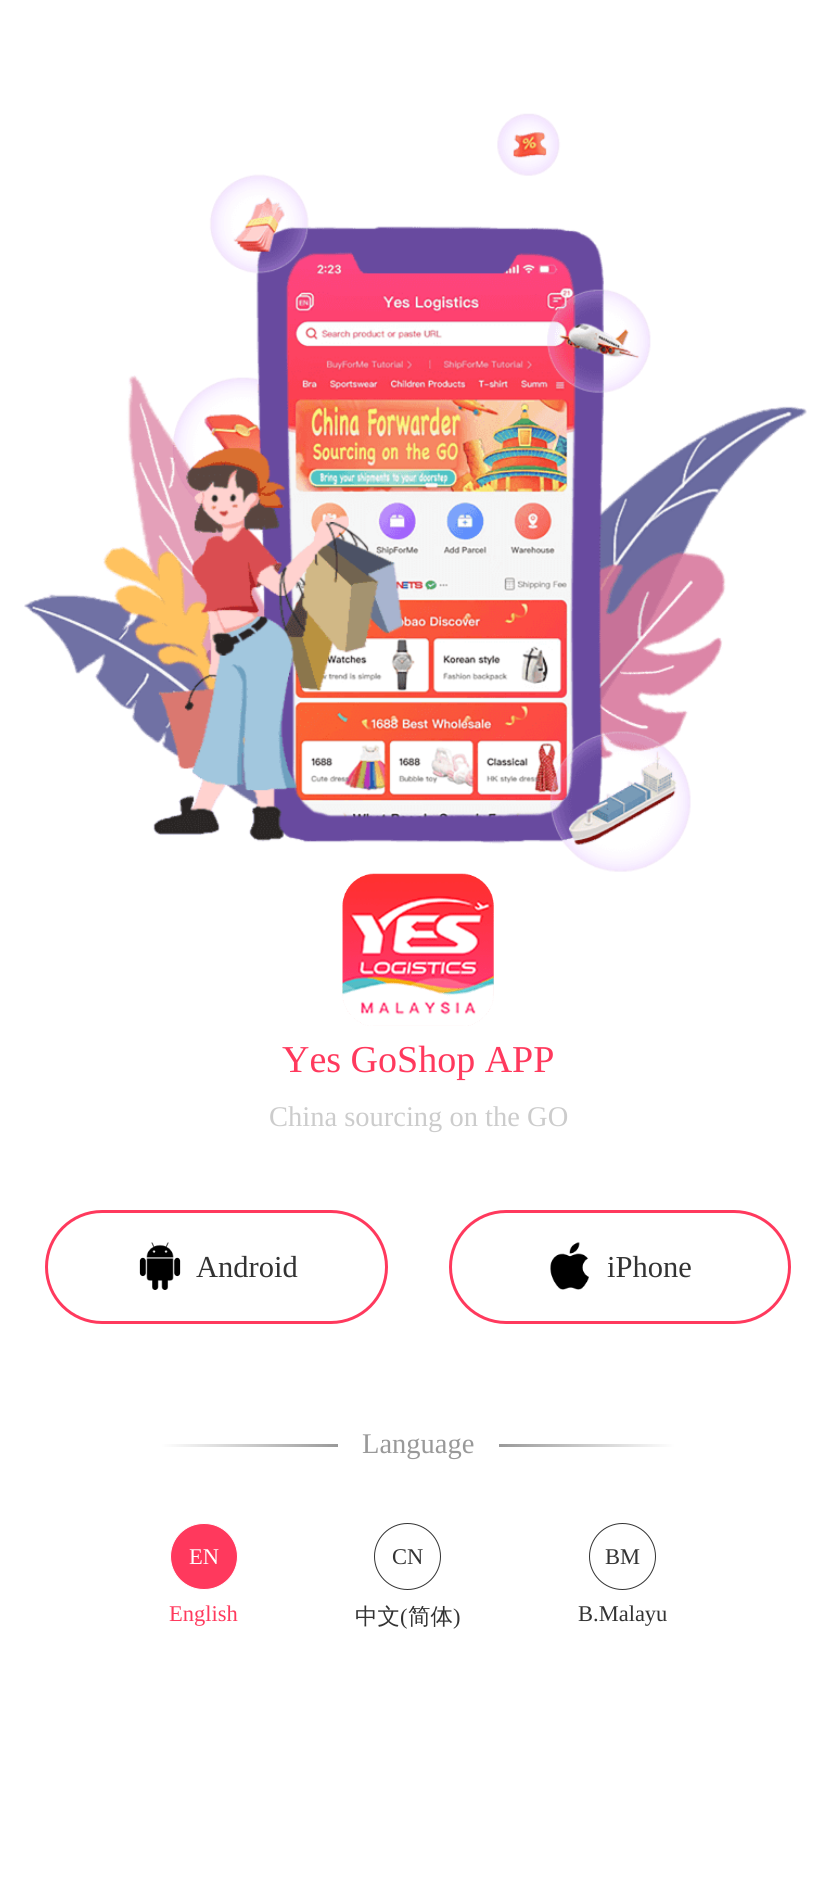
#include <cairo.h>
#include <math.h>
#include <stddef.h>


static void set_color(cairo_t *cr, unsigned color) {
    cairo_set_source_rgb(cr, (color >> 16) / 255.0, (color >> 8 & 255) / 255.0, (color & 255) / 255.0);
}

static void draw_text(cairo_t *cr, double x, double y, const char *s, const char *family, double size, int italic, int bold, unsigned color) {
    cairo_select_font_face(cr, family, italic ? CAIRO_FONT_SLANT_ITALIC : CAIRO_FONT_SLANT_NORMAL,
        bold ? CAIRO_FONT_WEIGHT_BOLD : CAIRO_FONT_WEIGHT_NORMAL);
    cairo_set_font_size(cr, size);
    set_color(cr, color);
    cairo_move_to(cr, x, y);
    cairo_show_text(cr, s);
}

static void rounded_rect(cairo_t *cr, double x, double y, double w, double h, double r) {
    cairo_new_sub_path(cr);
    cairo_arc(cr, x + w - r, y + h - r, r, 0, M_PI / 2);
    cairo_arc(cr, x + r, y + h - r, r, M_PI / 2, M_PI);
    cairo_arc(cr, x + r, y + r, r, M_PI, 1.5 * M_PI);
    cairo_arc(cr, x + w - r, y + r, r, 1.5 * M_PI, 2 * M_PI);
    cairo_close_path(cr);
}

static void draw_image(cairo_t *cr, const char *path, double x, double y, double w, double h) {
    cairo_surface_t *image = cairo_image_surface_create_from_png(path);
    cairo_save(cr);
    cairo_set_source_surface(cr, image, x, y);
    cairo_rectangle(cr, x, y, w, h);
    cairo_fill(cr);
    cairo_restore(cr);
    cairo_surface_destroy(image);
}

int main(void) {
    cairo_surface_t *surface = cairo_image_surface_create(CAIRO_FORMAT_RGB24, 836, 1900);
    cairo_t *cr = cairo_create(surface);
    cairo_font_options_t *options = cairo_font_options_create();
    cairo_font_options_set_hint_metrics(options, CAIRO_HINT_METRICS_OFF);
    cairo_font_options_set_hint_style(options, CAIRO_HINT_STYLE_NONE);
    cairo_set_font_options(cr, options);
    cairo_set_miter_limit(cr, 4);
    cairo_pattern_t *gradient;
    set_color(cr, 0xFFFFFF);
    cairo_paint(cr);
    draw_image(cr, "assets/img1.png", 24, 113, 783, 759);
    draw_image(cr, "assets/img2.png", 342, 873, 152, 153);
    draw_text(cr, 282, 1072, "Yes GoShop APP", "Liberation Serif", 38, 0, 0, 0xFF395D);
    draw_text(cr, 269, 1126, "China sourcing on the GO", "Liberation Serif", 28.5, 0, 0, 0xCCCCCC);
    rounded_rect(cr, 46.5, 1211.5, 340, 111, 55.5);
    set_color(cr, 0xFF395D);
    cairo_set_line_width(cr, 3);
    cairo_stroke(cr);
    draw_image(cr, "assets/img3.png", 139, 1242, 42, 48);
    draw_text(cr, 196, 1277, "Android", "Liberation Serif", 30.5, 0, 0, 0x333333);
    rounded_rect(cr, 450.5, 1211.5, 339, 111, 55.5);
    set_color(cr, 0xFF395D);
    cairo_stroke(cr);
    draw_image(cr, "assets/img4.png", 550, 1242, 39, 48);
    draw_text(cr, 607, 1277, "iPhone", "Liberation Serif", 30.5, 0, 0, 0x333333);
    gradient = cairo_pattern_create_linear(338, 1445, 161, 1445);
    cairo_pattern_add_color_stop_rgba(gradient, 0, 0.6, 0.6, 0.6, 1);
    cairo_pattern_add_color_stop_rgba(gradient, 1, 1, 1, 1, 1);
    cairo_set_source(cr, gradient);
    cairo_pattern_destroy(gradient);
    cairo_rectangle(cr, 161, 1444, 177, 3);
    cairo_fill(cr);
    draw_text(cr, 362, 1453, "Language", "Liberation Serif", 28.5, 0, 0, 0x999999);
    gradient = cairo_pattern_create_linear(499, 1445, 675, 1445);
    cairo_pattern_add_color_stop_rgba(gradient, 0, 0.6, 0.6, 0.6, 1);
    cairo_pattern_add_color_stop_rgba(gradient, 1, 1, 1, 1, 1);
    cairo_set_source(cr, gradient);
    cairo_pattern_destroy(gradient);
    cairo_rectangle(cr, 499, 1444, 176, 3);
    cairo_fill(cr);
    set_color(cr, 0xFF395D);
    rounded_rect(cr, 170.5, 1523.5, 67, 66, 33);
    cairo_fill_preserve(cr);
    set_color(cr, 0xFFFFFF);
    cairo_set_line_width(cr, 1);
    cairo_stroke(cr);
    draw_text(cr, 189, 1564, "EN", "Liberation Serif", 22.5, 0, 0, 0xFFFFFF);
    draw_text(cr, 169, 1621, "English", "Liberation Serif", 22.5, 0, 0, 0xFF395D);
    cairo_new_path(cr);
    cairo_arc(cr, 407.5, 1556.5, 33, 0, 2 * M_PI);
    set_color(cr, 0x333333);
    cairo_stroke(cr);
    draw_text(cr, 392, 1564, "CN", "Liberation Serif", 22.5, 0, 0, 0x333333);
    draw_text(cr, 355, 1624, "中文", "WenQuanYi Zen Hei Medium", 22.5, 0, 0, 0x333333);
    draw_text(cr, 400, 1624, "(", "Liberation Serif", 22.5, 0, 0, 0x333333);
    draw_text(cr, 408, 1624, "简体", "WenQuanYi Zen Hei Medium", 22.5, 0, 0, 0x333333);
    draw_text(cr, 453, 1624, ")", "Liberation Serif", 22.5, 0, 0, 0x333333);
    cairo_new_path(cr);
    cairo_arc(cr, 622.5, 1556.5, 33, 0, 2 * M_PI);
    cairo_stroke(cr);
    draw_text(cr, 605, 1564, "BM", "Liberation Serif", 22.5, 0, 0, 0x333333);
    draw_text(cr, 578, 1621, "B.Malayu", "Liberation Serif", 22.5, 0, 0, 0x333333);
    cairo_surface_write_to_png(surface, "output.png");
    cairo_font_options_destroy(options);
    cairo_destroy(cr);
    cairo_surface_destroy(surface);
    return 0;
}
